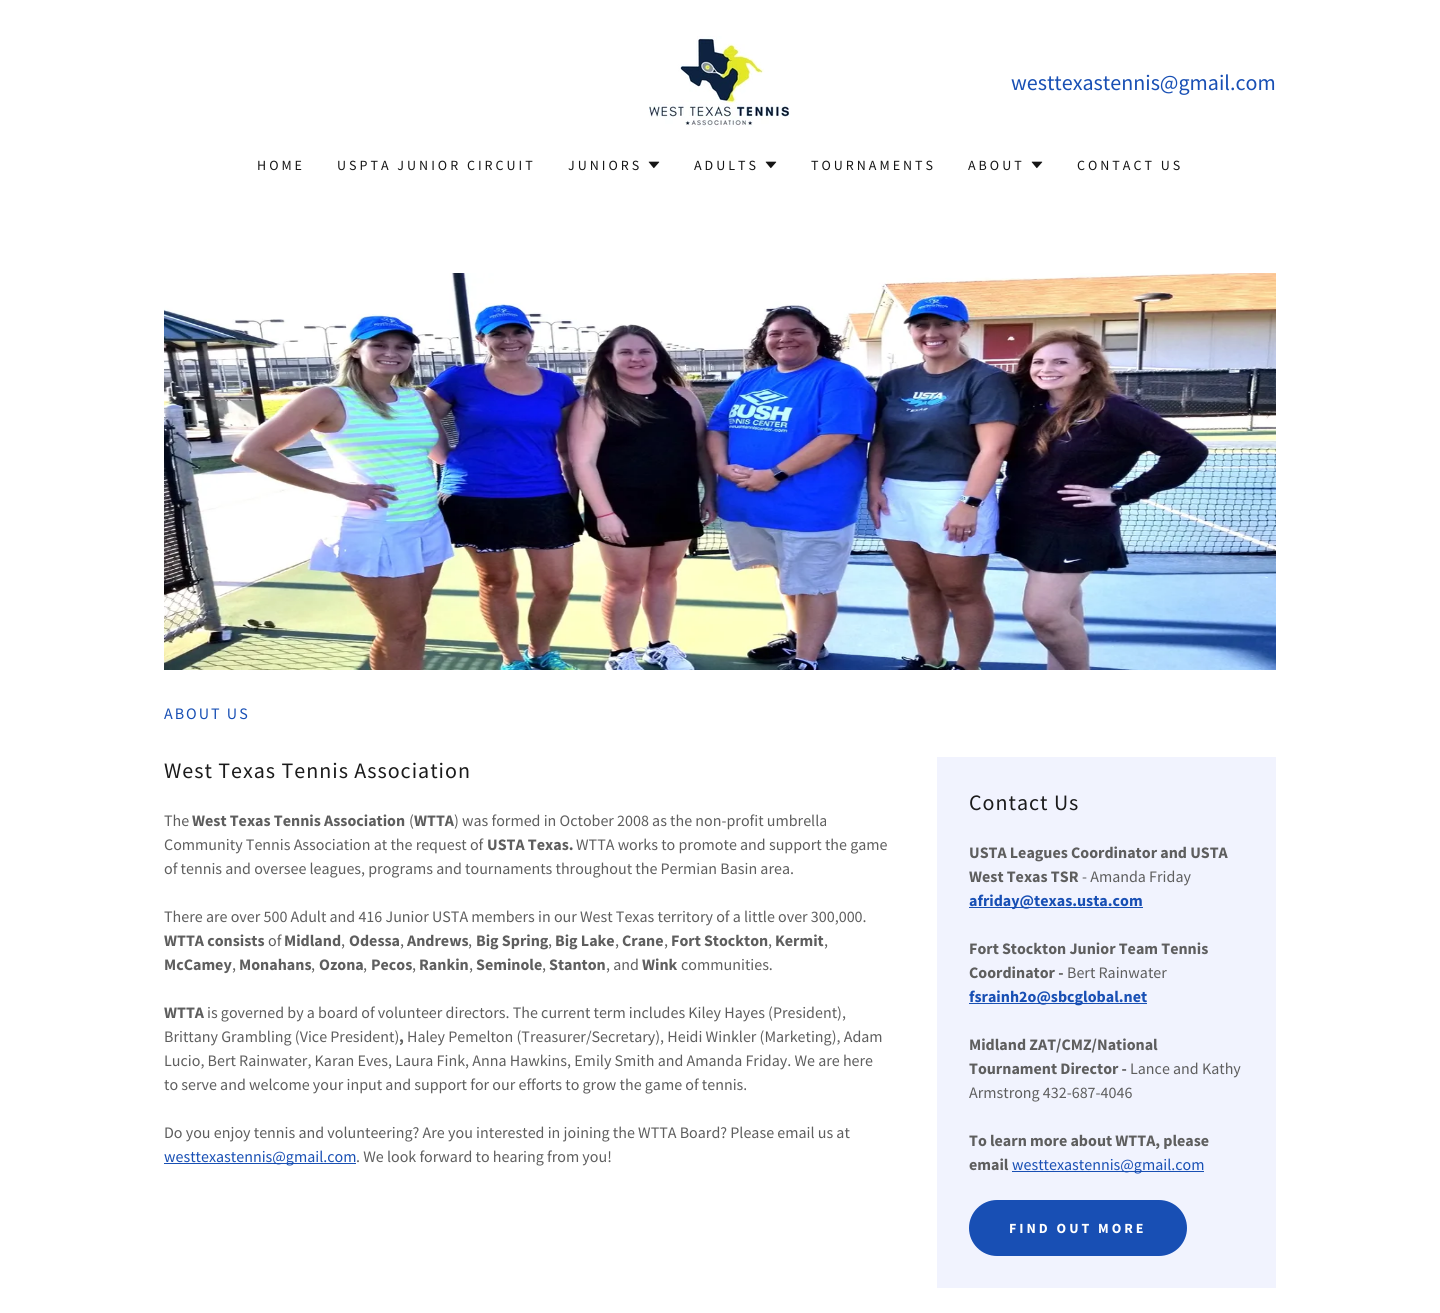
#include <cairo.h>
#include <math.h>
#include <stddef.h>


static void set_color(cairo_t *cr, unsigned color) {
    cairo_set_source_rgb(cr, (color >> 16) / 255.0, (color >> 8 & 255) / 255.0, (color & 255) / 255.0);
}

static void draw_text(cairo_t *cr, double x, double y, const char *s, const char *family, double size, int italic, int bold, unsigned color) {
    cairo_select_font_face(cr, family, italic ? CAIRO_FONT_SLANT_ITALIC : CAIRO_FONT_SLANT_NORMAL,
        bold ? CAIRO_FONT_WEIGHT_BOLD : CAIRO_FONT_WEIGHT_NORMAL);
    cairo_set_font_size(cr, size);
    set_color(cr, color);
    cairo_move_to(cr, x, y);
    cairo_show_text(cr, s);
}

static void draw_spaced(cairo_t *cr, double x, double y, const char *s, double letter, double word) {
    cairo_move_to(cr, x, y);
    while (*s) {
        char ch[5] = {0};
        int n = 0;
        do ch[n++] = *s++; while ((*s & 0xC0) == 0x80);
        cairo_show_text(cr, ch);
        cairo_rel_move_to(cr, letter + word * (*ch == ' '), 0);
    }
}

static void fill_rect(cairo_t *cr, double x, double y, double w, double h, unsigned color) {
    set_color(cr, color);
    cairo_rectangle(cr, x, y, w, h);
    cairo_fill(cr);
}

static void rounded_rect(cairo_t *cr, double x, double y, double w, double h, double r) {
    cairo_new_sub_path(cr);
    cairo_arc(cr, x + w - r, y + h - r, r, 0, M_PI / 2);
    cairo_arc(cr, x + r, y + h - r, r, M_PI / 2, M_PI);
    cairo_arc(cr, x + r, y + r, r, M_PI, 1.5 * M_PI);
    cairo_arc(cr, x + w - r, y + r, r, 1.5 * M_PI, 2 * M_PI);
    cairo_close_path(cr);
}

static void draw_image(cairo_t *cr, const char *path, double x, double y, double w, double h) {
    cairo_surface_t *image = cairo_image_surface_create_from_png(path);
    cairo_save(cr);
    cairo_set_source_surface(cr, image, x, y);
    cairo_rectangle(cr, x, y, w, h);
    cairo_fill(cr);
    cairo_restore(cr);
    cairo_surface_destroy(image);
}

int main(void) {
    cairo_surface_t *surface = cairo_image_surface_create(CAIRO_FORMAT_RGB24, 1440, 1313);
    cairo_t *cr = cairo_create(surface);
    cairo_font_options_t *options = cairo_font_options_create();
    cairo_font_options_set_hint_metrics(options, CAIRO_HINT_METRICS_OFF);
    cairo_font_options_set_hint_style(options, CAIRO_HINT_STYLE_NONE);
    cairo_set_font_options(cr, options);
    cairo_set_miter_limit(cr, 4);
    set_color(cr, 0xFFFFFF);
    cairo_paint(cr);
    draw_image(cr, "assets/img1.png", 649, 36, 141, 91);
    draw_text(cr, 1011, 90, "westtexastennis@gmail.com", "Source Sans Pro", 22, 0, 0, 0x184FB4);
    cairo_set_font_size(cr, 14);
    set_color(cr, 0x151515);
    draw_spaced(cr, 257, 170, "HOME", 3, 0);
    draw_spaced(cr, 337, 170, "USPTA JUNIOR CIRCUIT", 3, 0);
    draw_spaced(cr, 568, 170, "JUNIORS", 3, 0);
    draw_image(cr, "assets/img2.png", 648, 161, 12, 8);
    draw_spaced(cr, 694, 170, "ADULTS", 3, 0);
    draw_image(cr, "assets/img2.png", 765, 161, 12, 8);
    draw_spaced(cr, 811, 170, "TOURNAMENTS", 3, 0);
    draw_spaced(cr, 968, 170, "ABOUT", 3, 0);
    draw_image(cr, "assets/img2.png", 1031, 161, 12, 8);
    draw_spaced(cr, 1077, 170, "CONTACT US", 3, 0);
    draw_image(cr, "assets/img3.png", 164, 273, 1112, 397);
    cairo_set_font_size(cr, 16);
    set_color(cr, 0x184FB4);
    draw_spaced(cr, 164, 719, "ABOUT US", 2, 0);
    cairo_set_font_size(cr, 22);
    set_color(cr, 0x1B1B1B);
    draw_spaced(cr, 164, 778, "West Texas Tennis Association", 1, 0);
    draw_text(cr, 164, 826, "The", "Source Sans Pro", 16, 0, 0, 0x5E5E5E);
    draw_text(cr, 192, 826, "West Texas Tennis Association", "Source Sans Pro", 16, 0, 1, 0x5E5E5E);
    draw_text(cr, 409, 826, "(", "Source Sans Pro", 16, 0, 0, 0x5E5E5E);
    draw_text(cr, 414, 826, "WTTA", "Source Sans Pro", 16, 0, 1, 0x5E5E5E);
    draw_text(cr, 454, 826, ") was formed in October 2008 as the non-profit umbrella", "Source Sans Pro", 16, 0, 0, 0x5E5E5E);
    draw_text(cr, 164, 850, "Community Tennis Association at the request of", "Source Sans Pro", 16, 0, 0, 0x5E5E5E);
    draw_text(cr, 487, 850, "USTA Texas.", "Source Sans Pro", 16, 0, 1, 0x5E5E5E);
    draw_text(cr, 576, 850, "WTTA works to promote and support the game", "Source Sans Pro", 16, 0, 0, 0x5E5E5E);
    draw_text(cr, 164, 874, "of tennis and oversee leagues, programs and tournaments throughout the Permian Basin area.", "Source Sans Pro", 16, 0, 0, 0x5E5E5E);
    draw_text(cr, 164, 922, "There are over 500 Adult and 416 Junior USTA members in our West Texas territory of a little over 300,000.", "Source Sans Pro", 16, 0, 0, 0x5E5E5E);
    draw_text(cr, 164, 946, "WTTA consists", "Source Sans Pro", 16, 0, 1, 0x5E5E5E);
    draw_text(cr, 268, 946, "of", "Source Sans Pro", 16, 0, 0, 0x5E5E5E);
    draw_text(cr, 284, 946, "Midland", "Source Sans Pro", 16, 0, 1, 0x5E5E5E);
    draw_text(cr, 341, 946, ",", "Source Sans Pro", 16, 0, 0, 0x5E5E5E);
    draw_text(cr, 349, 946, "Odessa", "Source Sans Pro", 16, 0, 1, 0x5E5E5E);
    draw_text(cr, 400, 946, ",", "Source Sans Pro", 16, 0, 0, 0x5E5E5E);
    draw_text(cr, 407, 946, "Andrews", "Source Sans Pro", 16, 0, 1, 0x5E5E5E);
    draw_text(cr, 468, 946, ",", "Source Sans Pro", 16, 0, 0, 0x5E5E5E);
    draw_text(cr, 476, 946, "Big Spring", "Source Sans Pro", 16, 0, 1, 0x5E5E5E);
    draw_text(cr, 548, 946, ",", "Source Sans Pro", 16, 0, 0, 0x5E5E5E);
    draw_text(cr, 555, 946, "Big Lake", "Source Sans Pro", 16, 0, 1, 0x5E5E5E);
    draw_text(cr, 615, 946, ",", "Source Sans Pro", 16, 0, 0, 0x5E5E5E);
    draw_text(cr, 622, 946, "Crane", "Source Sans Pro", 16, 0, 1, 0x5E5E5E);
    draw_text(cr, 664, 946, ",", "Source Sans Pro", 16, 0, 0, 0x5E5E5E);
    draw_text(cr, 671, 946, "Fort Stockton", "Source Sans Pro", 16, 0, 1, 0x5E5E5E);
    draw_text(cr, 768, 946, ",", "Source Sans Pro", 16, 0, 0, 0x5E5E5E);
    draw_text(cr, 775, 946, "Kermit", "Source Sans Pro", 16, 0, 1, 0x5E5E5E);
    draw_text(cr, 824, 946, ",", "Source Sans Pro", 16, 0, 0, 0x5E5E5E);
    draw_text(cr, 164, 970, "McCamey", "Source Sans Pro", 16, 0, 1, 0x5E5E5E);
    draw_text(cr, 232, 970, ",", "Source Sans Pro", 16, 0, 0, 0x5E5E5E);
    draw_text(cr, 239, 970, "Monahans", "Source Sans Pro", 16, 0, 1, 0x5E5E5E);
    draw_text(cr, 311, 970, ",", "Source Sans Pro", 16, 0, 0, 0x5E5E5E);
    draw_text(cr, 319, 970, "Ozona", "Source Sans Pro", 16, 0, 1, 0x5E5E5E);
    draw_text(cr, 363, 970, ",", "Source Sans Pro", 16, 0, 0, 0x5E5E5E);
    draw_text(cr, 371, 970, "Pecos", "Source Sans Pro", 16, 0, 1, 0x5E5E5E);
    draw_text(cr, 412, 970, ",", "Source Sans Pro", 16, 0, 0, 0x5E5E5E);
    draw_text(cr, 419, 970, "Rankin", "Source Sans Pro", 16, 0, 1, 0x5E5E5E);
    draw_text(cr, 469, 970, ",", "Source Sans Pro", 16, 0, 0, 0x5E5E5E);
    draw_text(cr, 476, 970, "Seminole", "Source Sans Pro", 16, 0, 1, 0x5E5E5E);
    draw_text(cr, 542, 970, ",", "Source Sans Pro", 16, 0, 0, 0x5E5E5E);
    draw_text(cr, 549, 970, "Stanton", "Source Sans Pro", 16, 0, 1, 0x5E5E5E);
    draw_text(cr, 606, 970, ", and", "Source Sans Pro", 16, 0, 0, 0x5E5E5E);
    draw_text(cr, 642, 970, "Wink", "Source Sans Pro", 16, 0, 1, 0x5E5E5E);
    draw_text(cr, 681, 970, "communities.", "Source Sans Pro", 16, 0, 0, 0x5E5E5E);
    draw_text(cr, 164, 1018, "WTTA", "Source Sans Pro", 16, 0, 1, 0x5E5E5E);
    draw_text(cr, 207, 1018, "is governed by a board of volunteer directors. The current term includes Kiley Hayes (President),", "Source Sans Pro", 16, 0, 0, 0x5E5E5E);
    draw_text(cr, 164, 1042, "Brittany Grambling (Vice President)", "Source Sans Pro", 16, 0, 0, 0x5E5E5E);
    draw_text(cr, 399, 1042, ",", "Source Sans Pro", 16, 0, 1, 0x5E5E5E);
    draw_text(cr, 407, 1042, "Haley Pemelton (Treasurer/Secretary), Heidi Winkler (Marketing), Adam", "Source Sans Pro", 16, 0, 0, 0x5E5E5E);
    draw_text(cr, 164, 1066, "Lucio, Bert Rainwater, Karan Eves, Laura Fink, Anna Hawkins, Emily Smith and Amanda Friday. We are here", "Source Sans Pro", 16, 0, 0, 0x5E5E5E);
    draw_text(cr, 164, 1090, "to serve and welcome your input and support for our efforts to grow the game of tennis.", "Source Sans Pro", 16, 0, 0, 0x5E5E5E);
    draw_text(cr, 164, 1138, "Do you enjoy tennis and volunteering? Are you interested in joining the WTTA Board? Please email us at", "Source Sans Pro", 16, 0, 0, 0x5E5E5E);
    fill_rect(cr, 164, 1163, 192, 1, 0x184FB4);
    draw_text(cr, 164, 1162, "westtexastennis@gmail.com", "Source Sans Pro", 16, 0, 0, 0x184FB4);
    draw_text(cr, 356, 1162, ". We look forward to hearing from you!", "Source Sans Pro", 16, 0, 0, 0x5E5E5E);
    fill_rect(cr, 937, 757, 339, 531, 0xF1F3FE);
    cairo_set_font_size(cr, 22);
    set_color(cr, 0x1B1B1B);
    draw_spaced(cr, 969, 810, "Contact Us", 1, 0);
    draw_text(cr, 969, 858, "USTA Leagues Coordinator and USTA", "Source Sans Pro", 16, 0, 1, 0x5E5E5E);
    draw_text(cr, 969, 882, "West Texas TSR", "Source Sans Pro", 16, 0, 1, 0x5E5E5E);
    draw_text(cr, 1082, 882, "- Amanda Friday", "Source Sans Pro", 16, 0, 0, 0x5E5E5E);
    fill_rect(cr, 969, 907, 174, 1, 0x184FB4);
    draw_text(cr, 969, 906, "afriday@texas.usta.com", "Source Sans Pro", 16, 0, 1, 0x184FB4);
    draw_text(cr, 969, 954, "Fort Stockton Junior Team Tennis", "Source Sans Pro", 16, 0, 1, 0x5E5E5E);
    draw_text(cr, 969, 978, "Coordinator -", "Source Sans Pro", 16, 0, 1, 0x5E5E5E);
    draw_text(cr, 1067, 978, "Bert Rainwater", "Source Sans Pro", 16, 0, 0, 0x5E5E5E);
    fill_rect(cr, 969, 1003, 178, 1, 0x184FB4);
    draw_text(cr, 969, 1002, "fsrainh2o@sbcglobal.net", "Source Sans Pro", 16, 0, 1, 0x184FB4);
    draw_text(cr, 969, 1050, "Midland ZAT/CMZ/National", "Source Sans Pro", 16, 0, 1, 0x5E5E5E);
    draw_text(cr, 969, 1074, "Tournament Director -", "Source Sans Pro", 16, 0, 1, 0x5E5E5E);
    draw_text(cr, 1130, 1074, "Lance and Kathy", "Source Sans Pro", 16, 0, 0, 0x5E5E5E);
    draw_text(cr, 969, 1098, "Armstrong 432-687-4046", "Source Sans Pro", 16, 0, 0, 0x5E5E5E);
    draw_text(cr, 969, 1146, "To learn more about WTTA, please", "Source Sans Pro", 16, 0, 1, 0x5E5E5E);
    draw_text(cr, 969, 1170, "email", "Source Sans Pro", 16, 0, 1, 0x5E5E5E);
    fill_rect(cr, 1012, 1171, 192, 1, 0x184FB4);
    draw_text(cr, 1012, 1170, "westtexastennis@gmail.com", "Source Sans Pro", 16, 0, 0, 0x184FB4);
    rounded_rect(cr, 969, 1200, 218, 56, 28);
    cairo_fill(cr);
    cairo_select_font_face(cr, "Source Sans Pro", CAIRO_FONT_SLANT_NORMAL, CAIRO_FONT_WEIGHT_BOLD);
    cairo_set_font_size(cr, 14);
    set_color(cr, 0xFFFFFF);
    draw_spaced(cr, 1009, 1233, "FIND OUT MORE", 3, 0);
    cairo_surface_write_to_png(surface, "output.png");
    cairo_font_options_destroy(options);
    cairo_destroy(cr);
    cairo_surface_destroy(surface);
    return 0;
}
